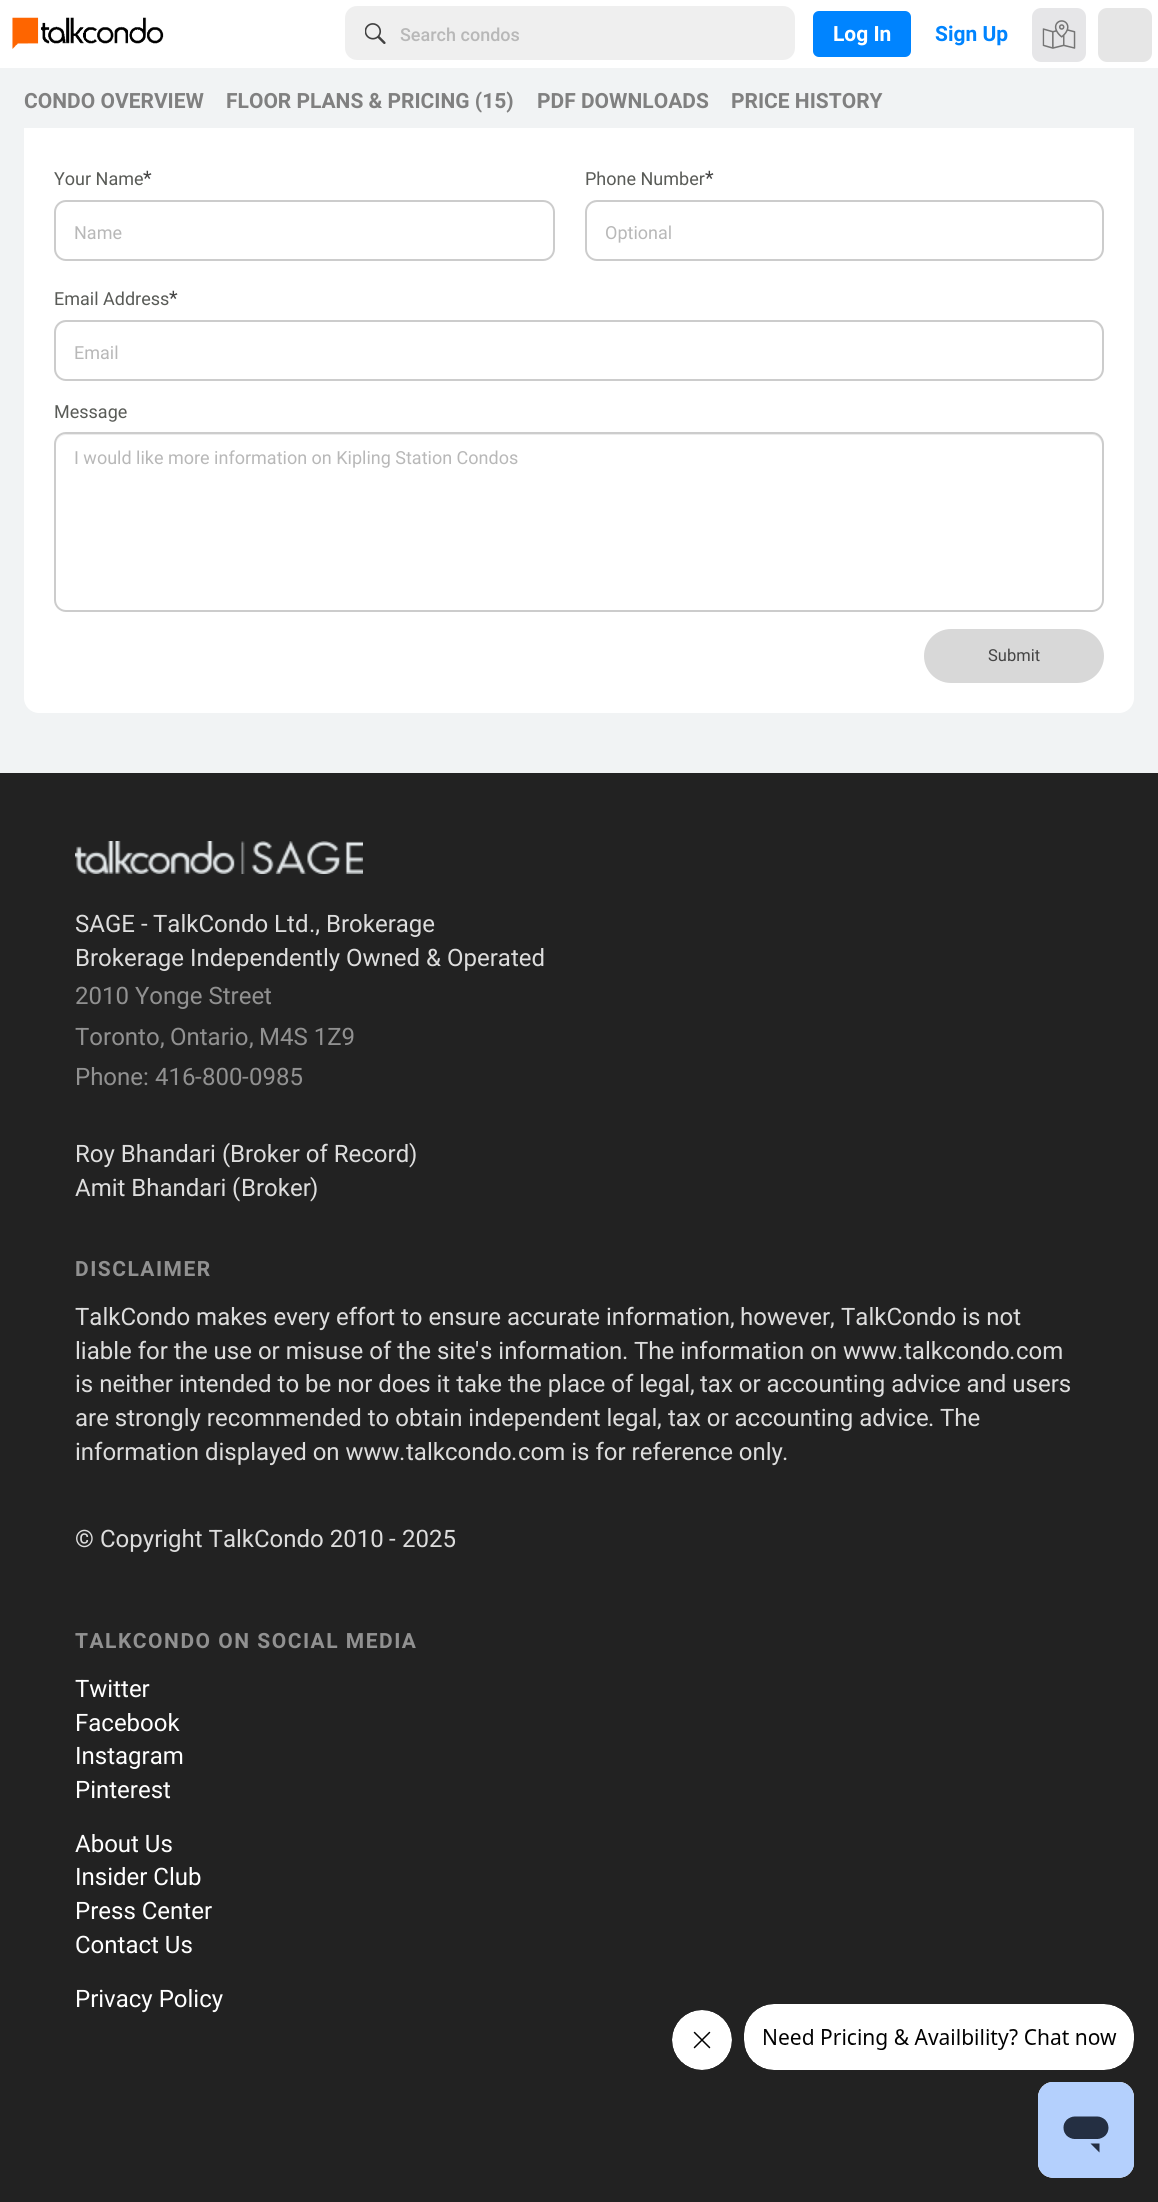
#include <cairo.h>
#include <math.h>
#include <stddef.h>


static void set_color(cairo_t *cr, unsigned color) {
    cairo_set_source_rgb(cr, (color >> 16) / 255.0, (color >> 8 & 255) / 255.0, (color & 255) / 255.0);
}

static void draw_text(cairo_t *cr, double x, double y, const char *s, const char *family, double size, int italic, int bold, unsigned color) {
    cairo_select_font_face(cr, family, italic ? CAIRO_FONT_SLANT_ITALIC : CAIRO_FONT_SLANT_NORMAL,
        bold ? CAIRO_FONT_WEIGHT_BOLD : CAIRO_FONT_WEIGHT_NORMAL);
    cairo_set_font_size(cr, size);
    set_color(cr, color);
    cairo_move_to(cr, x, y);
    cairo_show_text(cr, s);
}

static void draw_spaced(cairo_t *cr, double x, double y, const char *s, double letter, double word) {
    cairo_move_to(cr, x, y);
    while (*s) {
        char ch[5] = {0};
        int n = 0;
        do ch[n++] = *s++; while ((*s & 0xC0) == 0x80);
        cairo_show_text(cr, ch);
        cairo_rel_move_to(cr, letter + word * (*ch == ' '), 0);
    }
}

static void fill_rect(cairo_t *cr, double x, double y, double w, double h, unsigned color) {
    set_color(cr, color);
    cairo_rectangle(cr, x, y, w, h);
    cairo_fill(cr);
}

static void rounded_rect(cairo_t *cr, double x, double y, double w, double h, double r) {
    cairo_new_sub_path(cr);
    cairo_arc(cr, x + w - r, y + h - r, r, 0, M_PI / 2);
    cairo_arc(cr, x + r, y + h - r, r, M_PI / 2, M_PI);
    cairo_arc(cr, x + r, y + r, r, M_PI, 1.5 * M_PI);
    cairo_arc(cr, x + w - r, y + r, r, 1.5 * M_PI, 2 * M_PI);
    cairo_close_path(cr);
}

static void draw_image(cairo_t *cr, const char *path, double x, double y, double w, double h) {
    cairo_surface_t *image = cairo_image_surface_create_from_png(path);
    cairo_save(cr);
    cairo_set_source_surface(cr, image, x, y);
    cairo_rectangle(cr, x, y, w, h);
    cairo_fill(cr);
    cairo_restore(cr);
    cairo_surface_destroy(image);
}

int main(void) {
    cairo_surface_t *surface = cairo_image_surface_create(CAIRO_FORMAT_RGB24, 1158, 2202);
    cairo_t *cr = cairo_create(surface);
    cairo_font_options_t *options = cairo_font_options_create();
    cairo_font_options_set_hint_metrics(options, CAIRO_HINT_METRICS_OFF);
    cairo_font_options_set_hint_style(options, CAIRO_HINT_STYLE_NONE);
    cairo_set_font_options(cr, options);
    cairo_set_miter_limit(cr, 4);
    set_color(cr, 0xF1F3F4);
    cairo_paint(cr);
    fill_rect(cr, 0, 0, 1158, 68, 0xFFFFFF);
    draw_image(cr, "assets/img1.png", 12, 17, 152, 32);
    set_color(cr, 0xEFEFEF);
    rounded_rect(cr, 345, 6, 450, 54, 12);
    cairo_fill(cr);
    draw_image(cr, "assets/img2.png", 365, 23, 21, 21);
    draw_text(cr, 400, 41, "Search condos", "Roboto Medium", 18, 0, 0, 0xB8B8B8);
    set_color(cr, 0x0084FF);
    rounded_rect(cr, 813, 11, 98, 46, 6);
    cairo_fill(cr);
    draw_text(cr, 833, 41, "Log In", "Roboto", 21, 0, 1, 0xFFFFFF);
    draw_text(cr, 935, 41, "Sign Up", "Roboto", 21, 0, 1, 0x0084FF);
    set_color(cr, 0xE6E6E8);
    rounded_rect(cr, 1032, 8, 54, 54, 9);
    cairo_fill(cr);
    draw_image(cr, "assets/img3.png", 1042, 20, 34, 29);
    set_color(cr, 0xE6E6E6);
    rounded_rect(cr, 1098, 8, 54, 54, 9);
    cairo_fill(cr);
    set_color(cr, 0xFFFFFF);
    rounded_rect(cr, 24, 80, 1110, 633, 15);
    cairo_fill(cr);
    fill_rect(cr, 24, 80, 1110, 48, 0xF1F3F4);
    draw_text(cr, 24, 108, "CONDO OVERVIEW", "Roboto", 21, 0, 1, 0x808080);
    draw_text(cr, 226, 108, "FLOOR PLANS & PRICING (15)", "Roboto", 21, 0, 1, 0x808080);
    draw_text(cr, 537, 108, "PDF DOWNLOADS", "Roboto", 21, 0, 1, 0x808080);
    draw_text(cr, 731, 108, "PRICE HISTORY", "Roboto", 21, 0, 1, 0x808080);
    draw_text(cr, 54, 185, "Your Name", "Roboto", 18, 0, 0, 0x595B57);
    draw_text(cr, 143, 185, "*", "Roboto", 20, 0, 0, 0x444444);
    rounded_rect(cr, 55, 201, 499, 59, 11);
    set_color(cr, 0xCCCCCC);
    cairo_stroke(cr);
    draw_text(cr, 74, 239, "Name", "Roboto", 18, 0, 0, 0xB8B8B8);
    draw_text(cr, 585, 185, "Phone Number", "Roboto", 18, 0, 0, 0x595B57);
    draw_text(cr, 705, 185, "*", "Roboto", 20, 0, 0, 0x444444);
    set_color(cr, 0xECECEC);
    cairo_new_path(cr);
    cairo_move_to(cr, 597, 202);
    cairo_line_to(cr, 1092, 202);
    cairo_curve_to(cr, 1098, 202, 1102, 207, 1102, 213);
    cairo_line_to(cr, 1102, 250);
    cairo_curve_to(cr, 1102, 252, 1101, 254, 1100, 256);
    cairo_curve_to(cr, 1102, 254, 1103, 252, 1103, 249);
    cairo_line_to(cr, 1103, 212);
    cairo_curve_to(cr, 1103, 206, 1098, 201, 1092, 201);
    cairo_line_to(cr, 598, 201);
    cairo_curve_to(cr, 595, 201, 592, 203, 590, 205);
    cairo_curve_to(cr, 592, 203, 594, 202, 597, 202);
    cairo_close_path(cr);
    cairo_fill(cr);
    rounded_rect(cr, 586, 201, 517, 59, 11);
    set_color(cr, 0xCCCCCC);
    cairo_stroke(cr);
    draw_text(cr, 605, 239, "Optional", "Roboto", 18, 0, 0, 0xB8B8B8);
    draw_text(cr, 54, 305, "Email Address", "Roboto", 18, 0, 0, 0x595B57);
    draw_text(cr, 169, 305, "*", "Roboto", 20, 0, 0, 0x444444);
    set_color(cr, 0xECECEC);
    cairo_new_path(cr);
    cairo_move_to(cr, 66, 322);
    cairo_line_to(cr, 1092, 322);
    cairo_curve_to(cr, 1098, 322, 1102, 327, 1102, 333);
    cairo_line_to(cr, 1102, 370);
    cairo_curve_to(cr, 1102, 372, 1101, 374, 1100, 376);
    cairo_curve_to(cr, 1102, 374, 1103, 372, 1103, 369);
    cairo_line_to(cr, 1103, 332);
    cairo_curve_to(cr, 1103, 326, 1098, 321, 1092, 321);
    cairo_line_to(cr, 67, 321);
    cairo_curve_to(cr, 61, 321, 56, 326, 56, 332);
    cairo_line_to(cr, 56, 333);
    cairo_curve_to(cr, 56, 327, 60, 322, 66, 322);
    cairo_close_path(cr);
    cairo_fill(cr);
    rounded_rect(cr, 55, 321, 1048, 59, 11);
    set_color(cr, 0xCCCCCC);
    cairo_stroke(cr);
    draw_text(cr, 74, 359, "Email", "Roboto", 18, 0, 0, 0xB8B8B8);
    draw_text(cr, 54, 418, "Message", "Roboto", 18, 0, 0, 0x595B57);
    set_color(cr, 0xECECEC);
    cairo_new_path(cr);
    cairo_move_to(cr, 66, 435);
    cairo_line_to(cr, 1092, 435);
    cairo_curve_to(cr, 1098, 435, 1102, 440, 1102, 446);
    cairo_line_to(cr, 1102, 602);
    cairo_line_to(cr, 1101, 606);
    cairo_curve_to(cr, 1102, 605, 1103, 602, 1103, 600);
    cairo_line_to(cr, 1103, 445);
    cairo_curve_to(cr, 1103, 439, 1098, 434, 1092, 434);
    cairo_line_to(cr, 67, 434);
    cairo_curve_to(cr, 61, 434, 56, 439, 56, 445);
    cairo_line_to(cr, 56, 446);
    cairo_curve_to(cr, 56, 440, 60, 435, 66, 435);
    cairo_close_path(cr);
    cairo_fill(cr);
    rounded_rect(cr, 55, 433, 1048, 178, 11);
    set_color(cr, 0xCCCCCC);
    cairo_stroke(cr);
    draw_text(cr, 74, 464, "I would like more information on Kipling Station Condos", "Roboto", 18, 0, 0, 0xB8B8B8);
    set_color(cr, 0xD8D8D8);
    rounded_rect(cr, 924, 629, 180, 54, 27);
    cairo_fill(cr);
    draw_text(cr, 988, 661, "Submit", "Roboto", 16.5, 0, 0, 0x444444);
    fill_rect(cr, 0, 773, 1158, 1429, 0x222222);
    draw_image(cr, "assets/img4.png", 75, 841, 288, 33);
    draw_text(cr, 75, 932, "SAGE", "Roboto", 24, 0, 0, 0xDDDDDD);
    draw_text(cr, 141, 932, "-", "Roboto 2", 24, 0, 0, 0xDDDDDD);
    draw_text(cr, 153, 932, "TalkCondo Ltd", "Roboto", 24, 0, 0, 0xDDDDDD);
    draw_text(cr, 326, 932, "Brokerage", "Roboto", 24, 0, 0, 0xDDDDDD);
    draw_text(cr, 309, 932, ".,", "Roboto 2", 24, 0, 0, 0xDDDDDD);
    draw_text(cr, 75, 966, "Brokerage Independently Owned", "Roboto", 24, 0, 0, 0xDDDDDD);
    draw_text(cr, 426, 966, "&", "Roboto 2", 24, 0, 0, 0xDDDDDD);
    draw_text(cr, 447, 966, "Operated", "Roboto", 24, 0, 0, 0xDDDDDD);
    draw_text(cr, 75, 1004, "2010 Yonge Street", "Roboto", 24, 0, 0, 0x919191);
    draw_text(cr, 75, 1045, "Toronto", "Roboto", 24, 0, 0, 0x919191);
    draw_text(cr, 160, 1045, ",", "Roboto 2", 24, 0, 0, 0x919191);
    draw_text(cr, 170, 1045, "Ontario", "Roboto", 24, 0, 0, 0x919191);
    draw_text(cr, 249, 1045, ",", "Roboto 2", 24, 0, 0, 0x919191);
    draw_text(cr, 259, 1045, "M4S 1Z9", "Roboto", 24, 0, 0, 0x919191);
    draw_text(cr, 75, 1085, "Phone", "Roboto", 24, 0, 0, 0x919191);
    draw_text(cr, 143, 1085, ":", "Roboto 2", 24, 0, 0, 0x919191);
    draw_text(cr, 155, 1085, "416", "Roboto", 24, 0, 0, 0x919191);
    draw_text(cr, 195, 1085, "-", "Roboto 2", 24, 0, 0, 0x919191);
    draw_text(cr, 202, 1085, "800", "Roboto", 24, 0, 0, 0x919191);
    draw_text(cr, 242, 1085, "-", "Roboto 2", 24, 0, 0, 0x919191);
    draw_text(cr, 249, 1085, "0985", "Roboto", 24, 0, 0, 0x919191);
    draw_text(cr, 75, 1162, "Roy Bhandari", "Roboto", 24, 0, 0, 0xDDDDDD);
    draw_text(cr, 222, 1162, "(", "Roboto 2", 24, 0, 0, 0xDDDDDD);
    draw_text(cr, 230, 1162, "Broker of Record", "Roboto", 24, 0, 0, 0xDDDDDD);
    draw_text(cr, 409, 1162, ")", "Roboto 2", 24, 0, 0, 0xDDDDDD);
    draw_text(cr, 75, 1196, "Amit Bhandari", "Roboto", 24, 0, 0, 0xDDDDDD);
    draw_text(cr, 232, 1196, "(", "Roboto 2", 24, 0, 0, 0xDDDDDD);
    draw_text(cr, 241, 1196, "Broker", "Roboto", 24, 0, 0, 0xDDDDDD);
    draw_text(cr, 310, 1196, ")", "Roboto 2", 24, 0, 0, 0xDDDDDD);
    cairo_select_font_face(cr, "Roboto", CAIRO_FONT_SLANT_NORMAL, CAIRO_FONT_WEIGHT_BOLD);
    cairo_set_font_size(cr, 21);
    set_color(cr, 0x919191);
    draw_spaced(cr, 75, 1276, "DISCLAIMER", 1.5, 0);
    draw_text(cr, 75, 1325, "TalkCondo makes every effort to ensure accurate information", "Roboto", 24, 0, 0, 0xDDDDDD);
    draw_text(cr, 730, 1325, ",", "Roboto 2", 24, 0, 0, 0xDDDDDD);
    draw_text(cr, 740, 1325, "however", "Roboto", 24, 0, 0, 0xDDDDDD);
    draw_text(cr, 830, 1325, ",", "Roboto 2", 24, 0, 0, 0xDDDDDD);
    draw_text(cr, 841, 1325, "TalkCondo is not", "Roboto", 24, 0, 0, 0xDDDDDD);
    draw_text(cr, 75, 1359, "liable for the use or misuse of the site", "Roboto", 24, 0, 0, 0xDDDDDD);
    draw_text(cr, 475, 1359, "'", "Roboto 2", 24, 0, 0, 0xDDDDDD);
    draw_text(cr, 480, 1359, "s information", "Roboto", 24, 0, 0, 0xDDDDDD);
    draw_text(cr, 622, 1359, ".", "Roboto 2", 24, 0, 0, 0xDDDDDD);
    draw_text(cr, 634, 1359, "The information on www", "Roboto", 24, 0, 0, 0xDDDDDD);
    draw_text(cr, 897, 1359, ".", "Roboto 2", 24, 0, 0, 0xDDDDDD);
    draw_text(cr, 904, 1359, "talkcondo", "Roboto", 24, 0, 0, 0xDDDDDD);
    draw_text(cr, 1009, 1359, ".", "Roboto 2", 24, 0, 0, 0xDDDDDD);
    draw_text(cr, 1016, 1359, "com", "Roboto", 24, 0, 0, 0xDDDDDD);
    draw_text(cr, 75, 1392, "is neither intended to be nor does it take the place of legal", "Roboto", 24, 0, 0, 0xDDDDDD);
    draw_text(cr, 690, 1392, ",", "Roboto 2", 24, 0, 0, 0xDDDDDD);
    draw_text(cr, 700, 1392, "tax or accounting advice and users", "Roboto", 24, 0, 0, 0xDDDDDD);
    draw_text(cr, 75, 1426, "are strongly recommended to obtain independent legal", "Roboto", 24, 0, 0, 0xDDDDDD);
    draw_text(cr, 657, 1426, ",", "Roboto 2", 24, 0, 0, 0xDDDDDD);
    draw_text(cr, 668, 1426, "tax or accounting advice", "Roboto", 24, 0, 0, 0xDDDDDD);
    draw_text(cr, 928, 1426, ".", "Roboto 2", 24, 0, 0, 0xDDDDDD);
    draw_text(cr, 940, 1426, "The", "Roboto", 24, 0, 0, 0xDDDDDD);
    draw_text(cr, 75, 1460, "information displayed on www", "Roboto", 24, 0, 0, 0xDDDDDD);
    draw_text(cr, 399, 1460, ".", "Roboto 2", 24, 0, 0, 0xDDDDDD);
    draw_text(cr, 406, 1460, "talkcondo", "Roboto", 24, 0, 0, 0xDDDDDD);
    draw_text(cr, 511, 1460, ".", "Roboto 2", 24, 0, 0, 0xDDDDDD);
    draw_text(cr, 518, 1460, "com is for reference only", "Roboto", 24, 0, 0, 0xDDDDDD);
    draw_text(cr, 782, 1460, ".", "Roboto 2", 24, 0, 0, 0xDDDDDD);
    draw_text(cr, 75, 1547, "©", "Roboto 2", 24, 0, 0, 0xDDDDDD);
    draw_text(cr, 100, 1547, "Copyright TalkCondo 2010", "Roboto", 24, 0, 0, 0xDDDDDD);
    draw_text(cr, 389, 1547, "-", "Roboto 2", 24, 0, 0, 0xDDDDDD);
    draw_text(cr, 402, 1547, "2025", "Roboto", 24, 0, 0, 0xDDDDDD);
    cairo_select_font_face(cr, "Roboto", CAIRO_FONT_SLANT_NORMAL, CAIRO_FONT_WEIGHT_BOLD);
    cairo_set_font_size(cr, 21);
    set_color(cr, 0x919191);
    draw_spaced(cr, 75, 1648, "TALKCONDO ON SOCIAL MEDIA", 1.5, 0);
    draw_text(cr, 75, 1697, "Twitter", "Roboto", 24, 0, 0, 0xFFFFFF);
    draw_text(cr, 75, 1731, "Facebook", "Roboto", 24, 0, 0, 0xFFFFFF);
    draw_text(cr, 75, 1764, "Instagram", "Roboto", 24, 0, 0, 0xFFFFFF);
    draw_text(cr, 75, 1798, "Pinterest", "Roboto", 24, 0, 0, 0xFFFFFF);
    draw_text(cr, 75, 1852, "About Us", "Roboto", 24, 0, 0, 0xFFFFFF);
    draw_text(cr, 75, 1885, "Insider Club", "Roboto", 24, 0, 0, 0xFFFFFF);
    draw_text(cr, 75, 1919, "Press Center", "Roboto", 24, 0, 0, 0xFFFFFF);
    draw_text(cr, 75, 1953, "Contact Us", "Roboto", 24, 0, 0, 0xFFFFFF);
    draw_text(cr, 75, 2007, "Privacy Policy", "Roboto", 24, 0, 0, 0xFFFFFF);
    draw_image(cr, "assets/img5.png", 672, 2010, 60, 60);
    draw_image(cr, "assets/img6.png", 744, 2004, 390, 66);
    draw_image(cr, "assets/img7.png", 1038, 2082, 96, 96);
    cairo_surface_write_to_png(surface, "output.png");
    cairo_font_options_destroy(options);
    cairo_destroy(cr);
    cairo_surface_destroy(surface);
    return 0;
}
